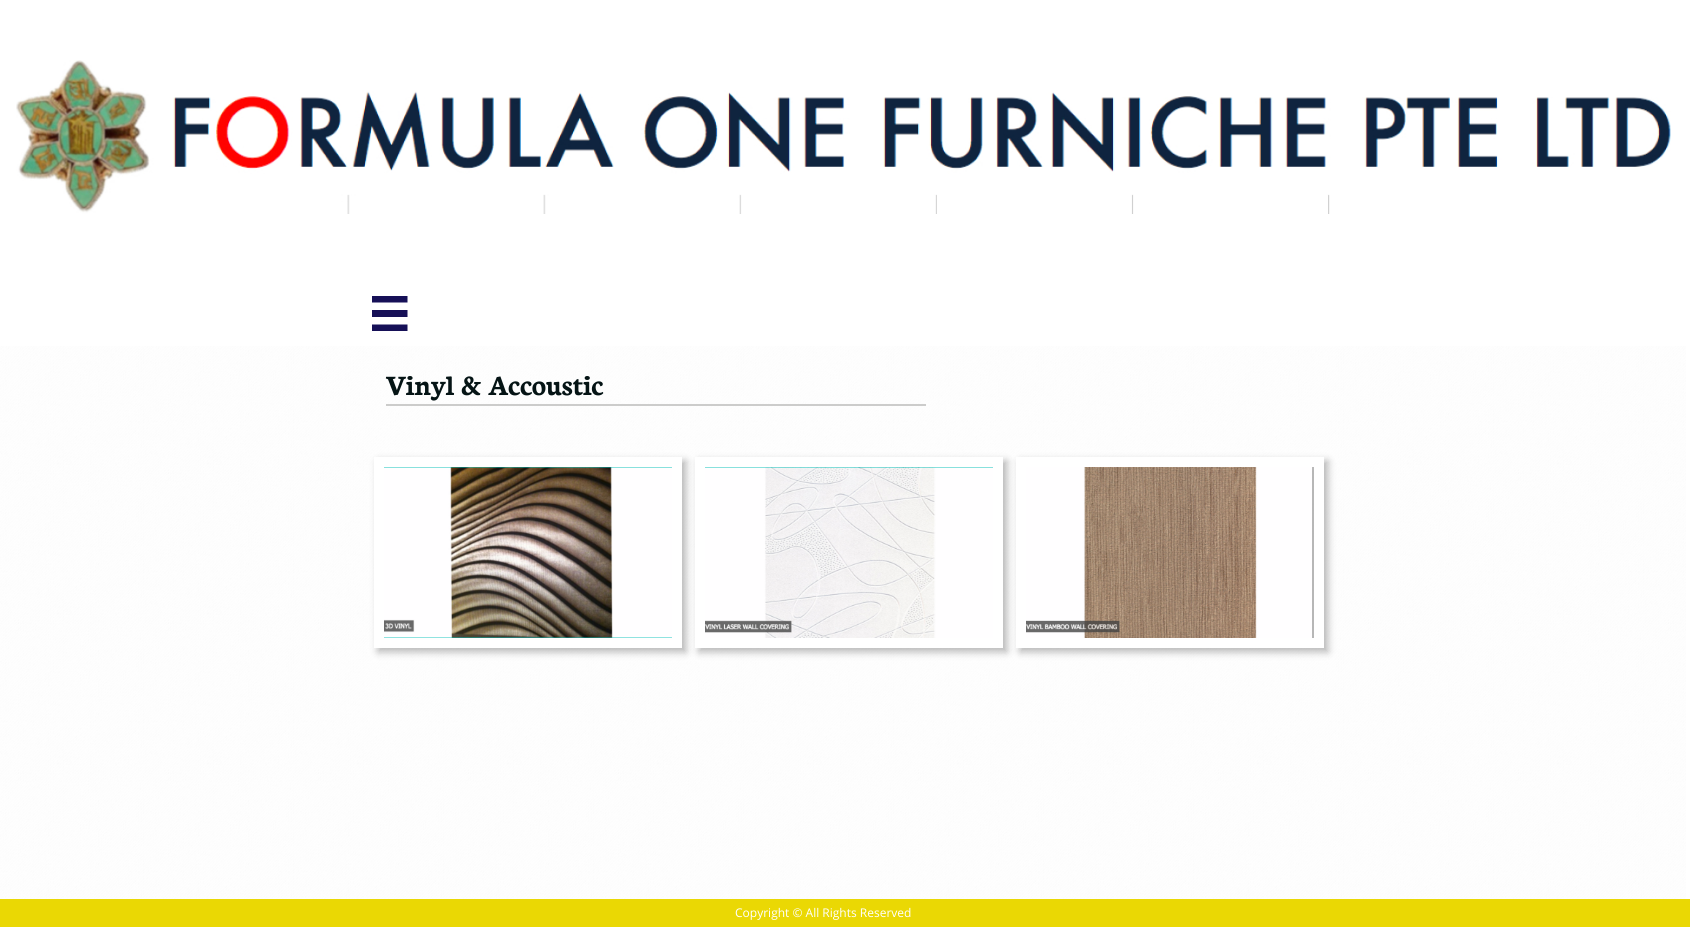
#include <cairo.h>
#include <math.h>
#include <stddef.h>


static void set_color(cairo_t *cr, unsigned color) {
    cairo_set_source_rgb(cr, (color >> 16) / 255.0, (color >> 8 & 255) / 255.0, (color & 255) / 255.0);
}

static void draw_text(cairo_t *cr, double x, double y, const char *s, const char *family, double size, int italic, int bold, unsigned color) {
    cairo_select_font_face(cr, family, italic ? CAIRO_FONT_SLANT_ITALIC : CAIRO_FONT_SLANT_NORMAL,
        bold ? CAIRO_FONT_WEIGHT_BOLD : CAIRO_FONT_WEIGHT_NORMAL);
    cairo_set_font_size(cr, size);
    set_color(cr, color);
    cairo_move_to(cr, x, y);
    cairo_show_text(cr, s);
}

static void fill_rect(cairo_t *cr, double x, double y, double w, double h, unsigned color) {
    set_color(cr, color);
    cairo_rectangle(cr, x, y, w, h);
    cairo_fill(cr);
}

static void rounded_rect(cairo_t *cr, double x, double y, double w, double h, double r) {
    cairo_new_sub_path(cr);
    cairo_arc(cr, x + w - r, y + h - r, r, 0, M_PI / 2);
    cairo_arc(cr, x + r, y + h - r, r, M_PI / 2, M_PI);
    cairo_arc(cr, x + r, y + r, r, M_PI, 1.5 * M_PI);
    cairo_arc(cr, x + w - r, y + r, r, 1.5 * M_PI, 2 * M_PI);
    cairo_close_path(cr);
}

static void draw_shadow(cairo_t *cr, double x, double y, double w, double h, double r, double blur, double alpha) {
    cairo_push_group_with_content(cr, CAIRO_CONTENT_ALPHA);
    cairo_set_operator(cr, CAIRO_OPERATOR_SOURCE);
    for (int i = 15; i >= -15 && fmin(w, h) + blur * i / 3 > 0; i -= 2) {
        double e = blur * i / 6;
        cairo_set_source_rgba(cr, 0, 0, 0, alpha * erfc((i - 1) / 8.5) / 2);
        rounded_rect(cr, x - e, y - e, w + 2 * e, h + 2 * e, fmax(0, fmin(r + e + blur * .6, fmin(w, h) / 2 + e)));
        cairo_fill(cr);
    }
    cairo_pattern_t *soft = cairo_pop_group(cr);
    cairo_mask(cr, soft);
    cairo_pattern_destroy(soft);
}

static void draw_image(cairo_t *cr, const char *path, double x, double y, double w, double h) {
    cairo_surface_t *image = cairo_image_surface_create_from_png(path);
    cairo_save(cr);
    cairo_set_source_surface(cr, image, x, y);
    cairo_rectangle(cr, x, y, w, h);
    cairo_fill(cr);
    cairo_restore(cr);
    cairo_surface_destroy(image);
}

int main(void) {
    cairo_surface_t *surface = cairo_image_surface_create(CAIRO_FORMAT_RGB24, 1690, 927);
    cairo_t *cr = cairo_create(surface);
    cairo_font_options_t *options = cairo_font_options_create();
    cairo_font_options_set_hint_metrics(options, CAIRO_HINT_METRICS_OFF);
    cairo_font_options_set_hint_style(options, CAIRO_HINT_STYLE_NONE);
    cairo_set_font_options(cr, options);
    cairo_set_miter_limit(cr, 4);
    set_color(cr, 0xFFFFFF);
    cairo_paint(cr);
    draw_image(cr, "assets/img1.png", 0, 346, 1686, 553);
    draw_image(cr, "assets/img2.png", 16, 60, 1655, 154);
    set_color(cr, 0x161057);
    cairo_new_path(cr);
    cairo_move_to(cr, 372, 324.5);
    cairo_line_to(cr, 407.5, 324.5);
    cairo_line_to(cr, 407.5, 331);
    cairo_line_to(cr, 372, 331);
    cairo_close_path(cr);
    cairo_move_to(cr, 372, 310);
    cairo_line_to(cr, 407.5, 310);
    cairo_line_to(cr, 407.5, 317);
    cairo_line_to(cr, 372, 317);
    cairo_close_path(cr);
    cairo_move_to(cr, 372, 296);
    cairo_line_to(cr, 407.5, 296);
    cairo_line_to(cr, 407.5, 302.5);
    cairo_line_to(cr, 372, 302.5);
    cairo_close_path(cr);
    cairo_fill(cr);
    fill_rect(cr, 386, 404, 540, 2, 0xCCCCCB);
    draw_text(cr, 386, 395, "Vinyl & Accoustic", "Neuton", 30, 0, 1, 0x051415);
    set_color(cr, 0x000000);
    draw_shadow(cr, 378, 461, 308, 191, 0, 4, 0.28);
    cairo_rectangle(cr, 379, 462, 298, 181);
    set_color(cr, 0xFFFFFF);
    cairo_set_line_width(cr, 10);
    cairo_stroke(cr);
    draw_image(cr, "assets/img3.png", 384, 467, 288, 171);
    set_color(cr, 0x000000);
    draw_shadow(cr, 699, 461, 308, 191, 0, 4, 0.28);
    cairo_rectangle(cr, 700, 462, 298, 181);
    set_color(cr, 0xFFFFFF);
    cairo_stroke(cr);
    draw_image(cr, "assets/img4.png", 705, 467, 288, 171);
    set_color(cr, 0x000000);
    draw_shadow(cr, 1020, 461, 308, 191, 0, 4, 0.28);
    cairo_rectangle(cr, 1021, 462, 298, 181);
    set_color(cr, 0xFFFFFF);
    cairo_stroke(cr);
    draw_image(cr, "assets/img5.png", 1026, 467, 286, 171);
    fill_rect(cr, 0, 899, 1690, 28, 0xEAD804);
    draw_text(cr, 735, 917, "Copyright © All Rights Reserved", "Open Sans", 12, 0, 0, 0xFFFFFF);
    cairo_surface_write_to_png(surface, "output.png");
    cairo_font_options_destroy(options);
    cairo_destroy(cr);
    cairo_surface_destroy(surface);
    return 0;
}
